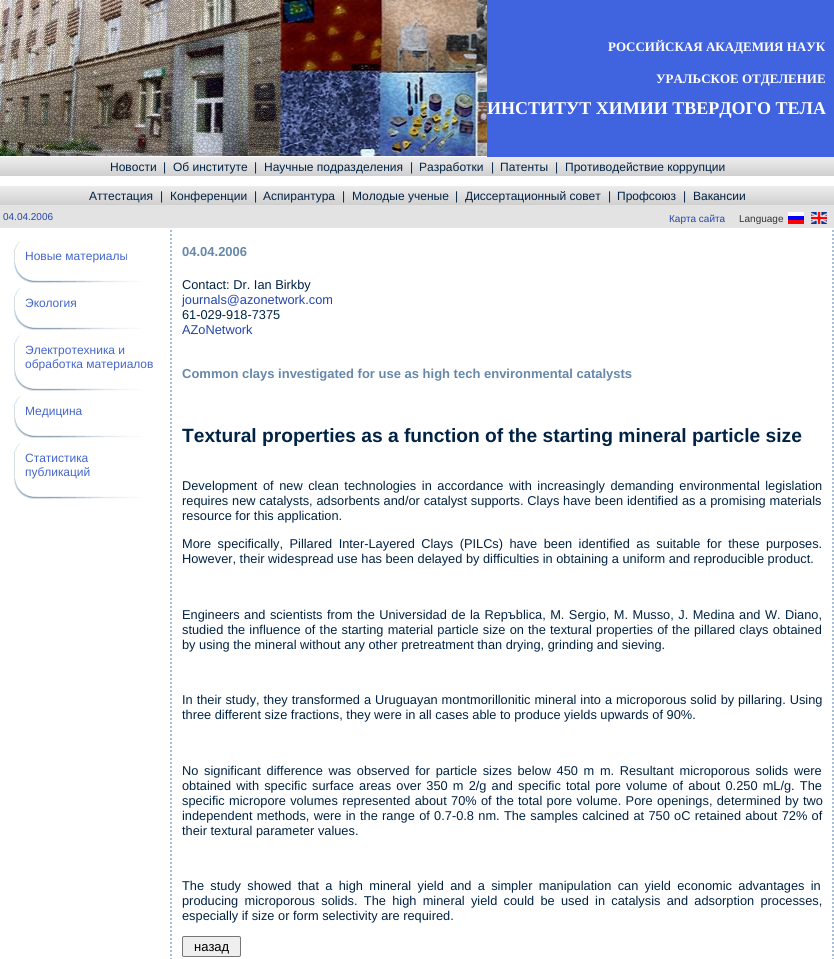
#include <cairo.h>
#include <math.h>
#include <stddef.h>


static void set_color(cairo_t *cr, unsigned color) {
    cairo_set_source_rgb(cr, (color >> 16) / 255.0, (color >> 8 & 255) / 255.0, (color & 255) / 255.0);
}

static void draw_text(cairo_t *cr, double x, double y, const char *s, const char *family, double size, int italic, int bold, unsigned color) {
    cairo_select_font_face(cr, family, italic ? CAIRO_FONT_SLANT_ITALIC : CAIRO_FONT_SLANT_NORMAL,
        bold ? CAIRO_FONT_WEIGHT_BOLD : CAIRO_FONT_WEIGHT_NORMAL);
    cairo_set_font_size(cr, size);
    set_color(cr, color);
    cairo_move_to(cr, x, y);
    cairo_show_text(cr, s);
}

static void draw_spaced(cairo_t *cr, double x, double y, const char *s, double letter, double word) {
    cairo_move_to(cr, x, y);
    while (*s) {
        char ch[5] = {0};
        int n = 0;
        do ch[n++] = *s++; while ((*s & 0xC0) == 0x80);
        cairo_show_text(cr, ch);
        cairo_rel_move_to(cr, letter + word * (*ch == ' '), 0);
    }
}

static void fill_rect(cairo_t *cr, double x, double y, double w, double h, unsigned color) {
    set_color(cr, color);
    cairo_rectangle(cr, x, y, w, h);
    cairo_fill(cr);
}

static void rounded_rect(cairo_t *cr, double x, double y, double w, double h, double r) {
    cairo_new_sub_path(cr);
    cairo_arc(cr, x + w - r, y + h - r, r, 0, M_PI / 2);
    cairo_arc(cr, x + r, y + h - r, r, M_PI / 2, M_PI);
    cairo_arc(cr, x + r, y + r, r, M_PI, 1.5 * M_PI);
    cairo_arc(cr, x + w - r, y + r, r, 1.5 * M_PI, 2 * M_PI);
    cairo_close_path(cr);
}

static void draw_image(cairo_t *cr, const char *path, double x, double y, double w, double h) {
    cairo_surface_t *image = cairo_image_surface_create_from_png(path);
    cairo_save(cr);
    cairo_set_source_surface(cr, image, x, y);
    cairo_rectangle(cr, x, y, w, h);
    cairo_fill(cr);
    cairo_restore(cr);
    cairo_surface_destroy(image);
}

int main(void) {
    cairo_surface_t *surface = cairo_image_surface_create(CAIRO_FORMAT_RGB24, 834, 959);
    cairo_t *cr = cairo_create(surface);
    cairo_font_options_t *options = cairo_font_options_create();
    cairo_font_options_set_hint_metrics(options, CAIRO_HINT_METRICS_OFF);
    cairo_font_options_set_hint_style(options, CAIRO_HINT_STYLE_NONE);
    cairo_set_font_options(cr, options);
    cairo_set_miter_limit(cr, 4);
    set_color(cr, 0xFFFFFF);
    cairo_paint(cr);
    fill_rect(cr, 487, 0, 347, 157, 0x4064DF);
    draw_image(cr, "assets/img1.png", 0, 0, 487, 157);
    draw_text(cr, 608, 51, "РОССИЙСКАЯ АКАДЕМИЯ НАУК", "Liberation Serif", 13, 0, 1, 0xFFFFFF);
    draw_text(cr, 656, 83, "УРАЛЬСКОЕ ОТДЕЛЕНИЕ", "Liberation Serif", 13, 0, 1, 0xFFFFFF);
    draw_text(cr, 487, 114, "ИНСТИТУТ ХИМИИ TBEPДОГО ТЕЛА", "Liberation Serif", 18, 0, 1, 0xFFFFFF);
    draw_image(cr, "assets/img2.png", 0, 157, 834, 19);
    draw_text(cr, 110, 171, "Новости", "Liberation Sans", 12, 0, 0, 0x002244);
    draw_text(cr, 163, 171, "|", "Liberation Sans", 12, 0, 0, 0x002244);
    draw_text(cr, 173, 171, "Об институте", "Liberation Sans", 12, 0, 0, 0x002244);
    draw_text(cr, 254, 171, "|", "Liberation Sans", 12, 0, 0, 0x002244);
    draw_text(cr, 264, 171, "Научные подразделения", "Liberation Sans", 12, 0, 0, 0x002244);
    draw_text(cr, 410, 171, "|", "Liberation Sans", 12, 0, 0, 0x002244);
    draw_text(cr, 419, 171, "Разработки", "Liberation Sans", 12, 0, 0, 0x002244);
    draw_text(cr, 491, 171, "|", "Liberation Sans", 12, 0, 0, 0x002244);
    draw_text(cr, 500, 171, "Патенты", "Liberation Sans", 12, 0, 0, 0x002244);
    draw_text(cr, 555, 171, "|", "Liberation Sans", 12, 0, 0, 0x002244);
    draw_text(cr, 565, 171, "Противодействие коррупции", "Liberation Sans", 12, 0, 0, 0x002244);
    draw_image(cr, "assets/img2.png", 0, 186, 834, 19);
    draw_text(cr, 89, 200, "Аттестация", "Liberation Sans", 12, 0, 0, 0x002244);
    draw_text(cr, 160, 200, "|", "Liberation Sans", 12, 0, 0, 0x002244);
    draw_text(cr, 170, 200, "Конференции", "Liberation Sans", 12, 0, 0, 0x002244);
    draw_text(cr, 254, 200, "|", "Liberation Sans", 12, 0, 0, 0x002244);
    draw_text(cr, 263, 200, "Аспирантура", "Liberation Sans", 12, 0, 0, 0x002244);
    draw_text(cr, 342, 200, "|", "Liberation Sans", 12, 0, 0, 0x002244);
    draw_text(cr, 352, 200, "Молодые ученые", "Liberation Sans", 12, 0, 0, 0x002244);
    draw_text(cr, 455, 200, "|", "Liberation Sans", 12, 0, 0, 0x002244);
    draw_text(cr, 465, 200, "Диссертационный совет", "Liberation Sans", 12, 0, 0, 0x002244);
    draw_text(cr, 608, 200, "|", "Liberation Sans", 12, 0, 0, 0x002244);
    draw_text(cr, 617, 200, "Профсоюз", "Liberation Sans", 12, 0, 0, 0x002244);
    draw_text(cr, 683, 200, "|", "Liberation Sans", 12, 0, 0, 0x002244);
    draw_text(cr, 693, 200, "Вакансии", "Liberation Sans", 12, 0, 0, 0x002244);
    fill_rect(cr, 0, 205, 834, 23, 0xE3E3E3);
    draw_text(cr, 3, 220, "04.04.2006", "Liberation Sans", 10, 0, 0, 0x2244AA);
    draw_text(cr, 669, 222, "Карта сайта", "Liberation Sans", 10, 0, 0, 0x2244AA);
    draw_text(cr, 739, 222, "Language", "Liberation Sans", 10, 0, 0, 0x333333);
    draw_image(cr, "assets/img3.png", 788, 212, 16, 12);
    draw_image(cr, "assets/img4.png", 811, 212, 16, 12);
    draw_image(cr, "assets/img5.png", 15, 241, 6, 8);
    fill_rect(cr, 14, 249, 1, 14, 0xD6DEE5);
    draw_text(cr, 25, 260, "Новые материалы", "Liberation Sans", 12, 0, 0, 0x4466CC);
    draw_image(cr, "assets/img6.png", 14, 263, 128, 20);
    draw_image(cr, "assets/img5.png", 15, 288, 6, 8);
    fill_rect(cr, 14, 296, 1, 14, 0xD6DEE5);
    draw_text(cr, 25, 307, "Экология", "Liberation Sans", 12, 0, 0, 0x4466CC);
    draw_image(cr, "assets/img6.png", 14, 310, 128, 20);
    draw_image(cr, "assets/img5.png", 15, 335, 6, 8);
    fill_rect(cr, 14, 343, 1, 28, 0xD6DEE5);
    draw_text(cr, 25, 354, "Электротехника и", "Liberation Sans", 12, 0, 0, 0x4466CC);
    draw_text(cr, 25, 368, "обработка материалов", "Liberation Sans", 12, 0, 0, 0x4466CC);
    draw_image(cr, "assets/img6.png", 14, 371, 128, 20);
    draw_image(cr, "assets/img5.png", 15, 396, 6, 8);
    fill_rect(cr, 14, 404, 1, 14, 0xD6DEE5);
    draw_text(cr, 25, 415, "Медицина", "Liberation Sans", 12, 0, 0, 0x4466CC);
    draw_image(cr, "assets/img6.png", 14, 418, 128, 20);
    draw_image(cr, "assets/img5.png", 15, 443, 6, 8);
    fill_rect(cr, 14, 451, 1, 28, 0xD6DEE5);
    draw_text(cr, 25, 462, "Статистика", "Liberation Sans", 12, 0, 0, 0x4466CC);
    draw_text(cr, 25, 476, "публикаций", "Liberation Sans", 12, 0, 0, 0x4466CC);
    draw_image(cr, "assets/img6.png", 14, 479, 128, 20);
    draw_image(cr, "assets/img7.png", 170, 230, 2, 729);
    draw_text(cr, 182, 256, "04.04.2006", "Liberation Sans", 13, 0, 1, 0x6688AA);
    draw_text(cr, 182, 289, "Contact: Dr. Ian Birkby", "Liberation Sans", 12.8, 0, 0, 0x002244);
    draw_text(cr, 182, 304, "journals@azonetwork.com", "Liberation Sans", 12.8, 0, 0, 0x2244AA);
    draw_text(cr, 182, 319, "61-029-918-7375", "Liberation Sans", 12.8, 0, 0, 0x002244);
    draw_text(cr, 182, 334, "AZoNetwork", "Liberation Sans", 12.8, 0, 0, 0x2244AA);
    draw_text(cr, 182, 378, "Common clays investigated for use as high tech environmental catalysts", "Liberation Sans", 13, 0, 1, 0x6688AA);
    draw_text(cr, 182, 442, "Textural properties as a function of the starting mineral particle size", "Liberation Sans", 19.2, 0, 1, 0x002244);
    cairo_select_font_face(cr, "Liberation Sans", CAIRO_FONT_SLANT_NORMAL, CAIRO_FONT_WEIGHT_NORMAL);
    cairo_set_font_size(cr, 12.8);
    draw_spaced(cr, 182, 490, "Development of new clean technologies in accordance with increasingly demanding environmental legislation", 0, 2);
    draw_spaced(cr, 182, 505, "requires new catalysts, adsorbents and/or catalyst supports. Clays have been identified as a promising materials", 0, 0.25);
    draw_text(cr, 182, 520, "resource for this application.", "Liberation Sans", 12.8, 0, 0, 0x002244);
    draw_spaced(cr, 182, 548, "More specifically, Pillared Inter-Layered Clays (PILCs) have been identified as suitable for these purposes.", 0, 2.9);
    draw_text(cr, 182, 563, "However, their widespread use has been delayed by difficulties in obtaining a uniform and reproducible product.", "Liberation Sans", 12.8, 0, 0, 0x002244);
    draw_spaced(cr, 182, 619, "Engineers and scientists from the Universidad de la Repъblica, M. Sergio, M. Musso, J. Medina and W. Diano,", 0, 0.9);
    draw_spaced(cr, 182, 634, "studied the influence of the starting material particle size on the textural properties of the pillared clays obtained", 0, 0.6);
    draw_text(cr, 182, 649, "by using the mineral without any other pretreatment than drying, grinding and sieving.", "Liberation Sans", 12.8, 0, 0, 0x002244);
    draw_spaced(cr, 182, 704, "In their study, they transformed a Uruguayan montmorillonitic mineral into a microporous solid by pillaring. Using", 0, 0.4);
    draw_text(cr, 182, 719, "three different size fractions, they were in all cases able to produce yields upwards of 90%.", "Liberation Sans", 12.8, 0, 0, 0x002244);
    draw_spaced(cr, 182, 775, "No significant difference was observed for particle sizes below 450 m m. Resultant microporous solids were", 0, 2.1);
    draw_spaced(cr, 182, 790, "obtained with specific surface areas over 350 m 2/g and specific total pore volume of about 0.250 mL/g. The", 0, 1.6);
    draw_spaced(cr, 182, 805, "specific micropore volumes represented about 70% of the total pore volume. Pore openings, determined by two", 0, 0.75);
    draw_spaced(cr, 182, 820, "independent methods, were in the range of 0.7-0.8 nm. The samples calcined at 750 oC retained about 72% of", 0, 0.75);
    draw_text(cr, 182, 835, "their textural parameter values.", "Liberation Sans", 12.8, 0, 0, 0x002244);
    draw_spaced(cr, 182, 890, "The study showed that a high mineral yield and a simpler manipulation can yield economic advantages in", 0, 2.75);
    draw_spaced(cr, 182, 905, "producing microporous solids. The high mineral yield could be used in catalysis and adsorption processes,", 0, 2.75);
    draw_text(cr, 182, 920, "especially if size or form selectivity are required.", "Liberation Sans", 12.8, 0, 0, 0x002244);
    set_color(cr, 0xEFEFEF);
    rounded_rect(cr, 182.5, 936.5, 58, 20, 1.5);
    cairo_fill_preserve(cr);
    set_color(cr, 0x767676);
    cairo_set_line_width(cr, 1);
    cairo_stroke(cr);
    draw_text(cr, 194, 951, "назад", "Liberation Sans", 13, 0, 0, 0x000000);
    draw_image(cr, "assets/img7.png", 832, 230, 2, 729);
    cairo_surface_write_to_png(surface, "output.png");
    cairo_font_options_destroy(options);
    cairo_destroy(cr);
    cairo_surface_destroy(surface);
    return 0;
}
